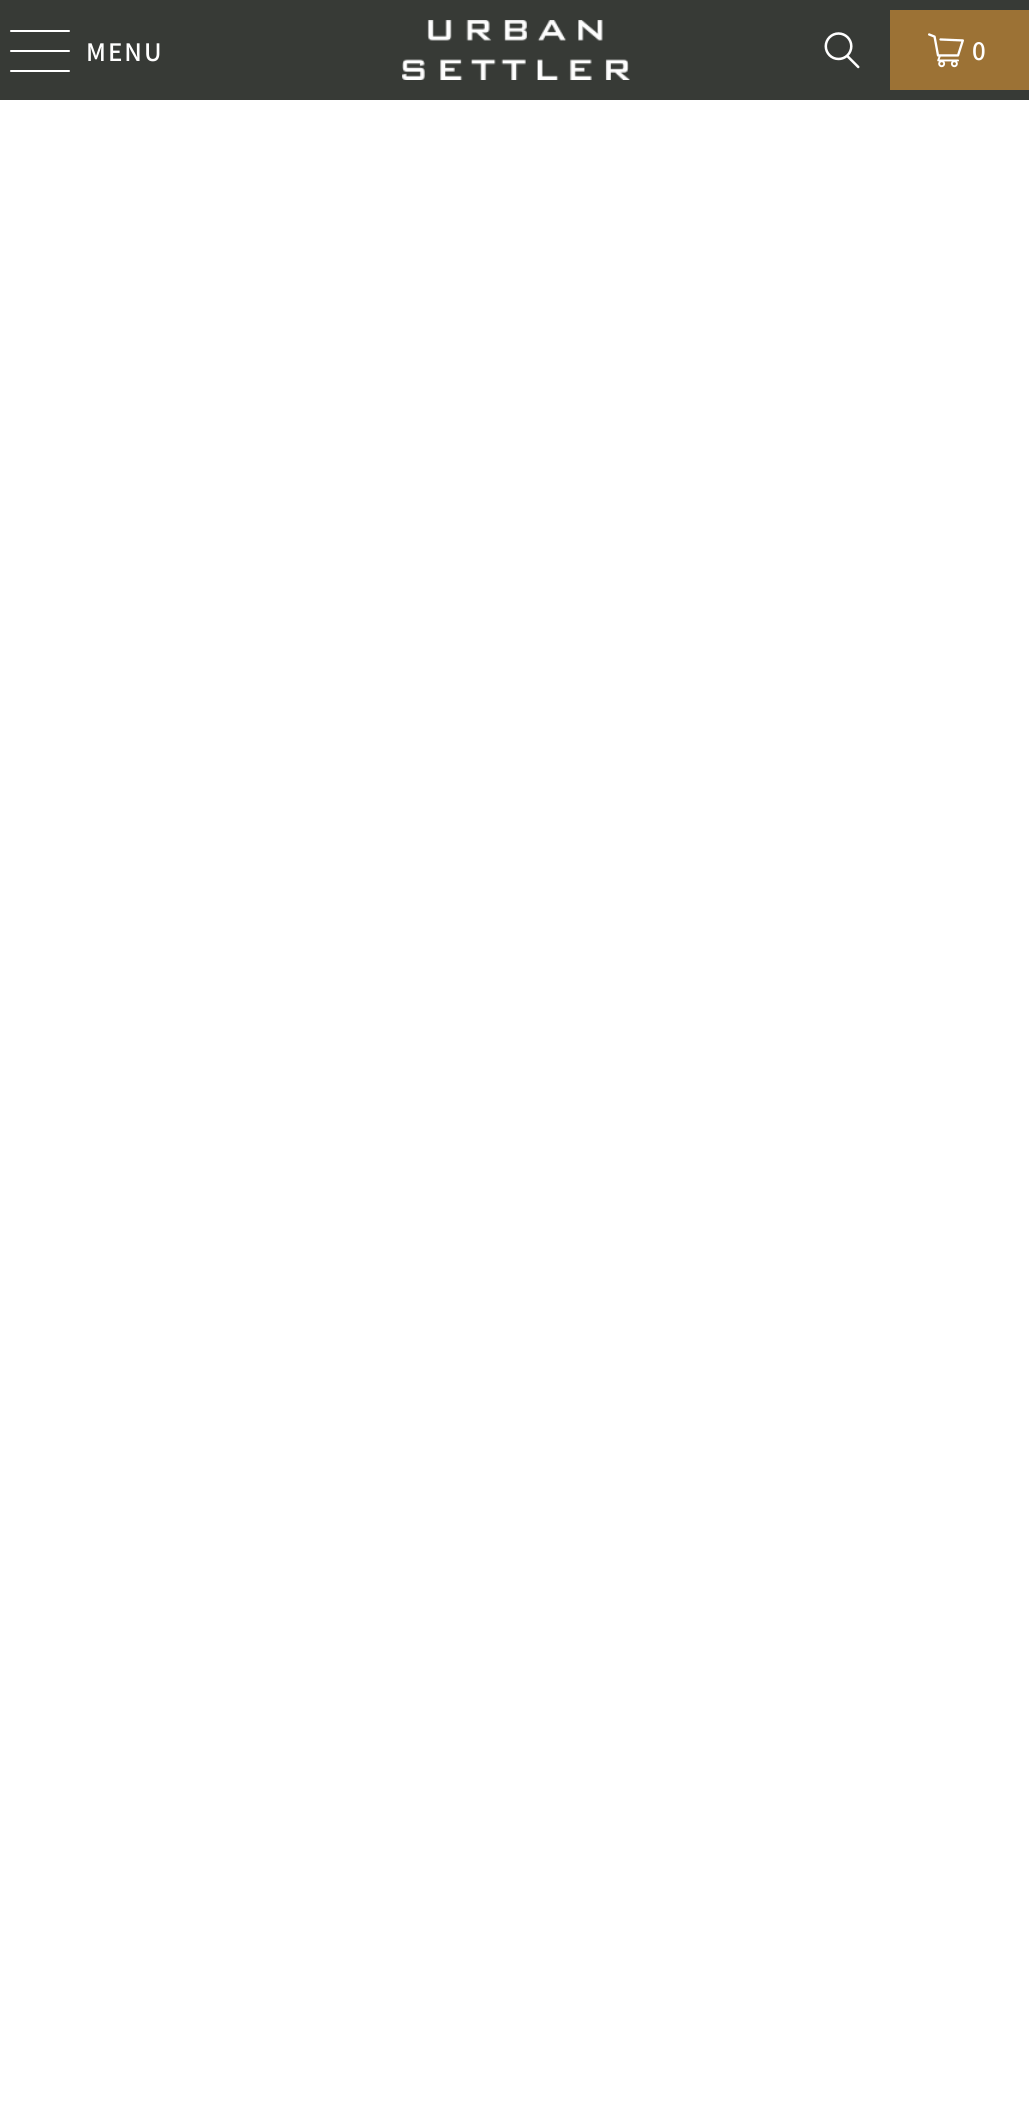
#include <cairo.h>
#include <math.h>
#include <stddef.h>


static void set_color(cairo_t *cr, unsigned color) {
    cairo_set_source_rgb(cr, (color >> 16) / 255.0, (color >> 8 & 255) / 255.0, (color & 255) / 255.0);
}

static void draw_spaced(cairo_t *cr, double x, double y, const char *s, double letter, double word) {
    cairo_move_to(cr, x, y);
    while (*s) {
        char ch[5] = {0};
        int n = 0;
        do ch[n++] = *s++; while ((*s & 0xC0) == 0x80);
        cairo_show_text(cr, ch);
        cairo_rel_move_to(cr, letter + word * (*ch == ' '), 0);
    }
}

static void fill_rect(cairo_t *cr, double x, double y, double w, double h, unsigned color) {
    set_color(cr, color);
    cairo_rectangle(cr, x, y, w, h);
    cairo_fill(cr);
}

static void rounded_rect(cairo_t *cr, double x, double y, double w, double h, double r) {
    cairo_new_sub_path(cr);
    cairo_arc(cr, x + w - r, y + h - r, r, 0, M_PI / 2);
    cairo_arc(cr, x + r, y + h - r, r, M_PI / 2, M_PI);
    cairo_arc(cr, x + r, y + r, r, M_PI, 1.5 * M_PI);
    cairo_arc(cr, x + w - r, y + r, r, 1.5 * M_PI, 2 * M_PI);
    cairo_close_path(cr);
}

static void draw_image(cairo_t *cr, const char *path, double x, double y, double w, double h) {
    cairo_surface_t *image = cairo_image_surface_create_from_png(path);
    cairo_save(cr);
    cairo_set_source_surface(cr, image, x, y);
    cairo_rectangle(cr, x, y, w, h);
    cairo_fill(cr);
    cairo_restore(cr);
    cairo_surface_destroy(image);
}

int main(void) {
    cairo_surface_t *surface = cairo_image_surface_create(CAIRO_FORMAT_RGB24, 1029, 2109);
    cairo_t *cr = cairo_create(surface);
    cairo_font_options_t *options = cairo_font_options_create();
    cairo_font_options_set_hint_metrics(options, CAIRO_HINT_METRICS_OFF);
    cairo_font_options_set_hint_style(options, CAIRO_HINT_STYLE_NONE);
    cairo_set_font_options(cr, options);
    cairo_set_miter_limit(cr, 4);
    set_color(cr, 0xFFFFFF);
    cairo_paint(cr);
    fill_rect(cr, 0, 0, 1029, 100, 0x373A36);
    set_color(cr, 0xFFFFFF);
    rounded_rect(cr, 10, 30, 60, 2, 1);
    cairo_fill(cr);
    rounded_rect(cr, 10, 50, 60, 2, 1);
    cairo_fill(cr);
    rounded_rect(cr, 10, 70, 60, 2, 1);
    cairo_fill(cr);
    cairo_select_font_face(cr, "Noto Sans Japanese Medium", CAIRO_FONT_SLANT_NORMAL, CAIRO_FONT_WEIGHT_NORMAL);
    cairo_set_font_size(cr, 24);
    draw_spaced(cr, 86, 61, "MENU", 2, 0);
    draw_image(cr, "assets/img1.png", 402, 20, 228, 60);
    draw_image(cr, "assets/img2.png", 824, 32, 36, 37);
    fill_rect(cr, 890, 10, 139, 80, 0x9C7235);
    draw_image(cr, "assets/img3.png", 928, 33, 36, 35);
    set_color(cr, 0xFFFFFF);
    draw_spaced(cr, 972, 60, "0", 2, 0);
    cairo_surface_write_to_png(surface, "output.png");
    cairo_font_options_destroy(options);
    cairo_destroy(cr);
    cairo_surface_destroy(surface);
    return 0;
}
